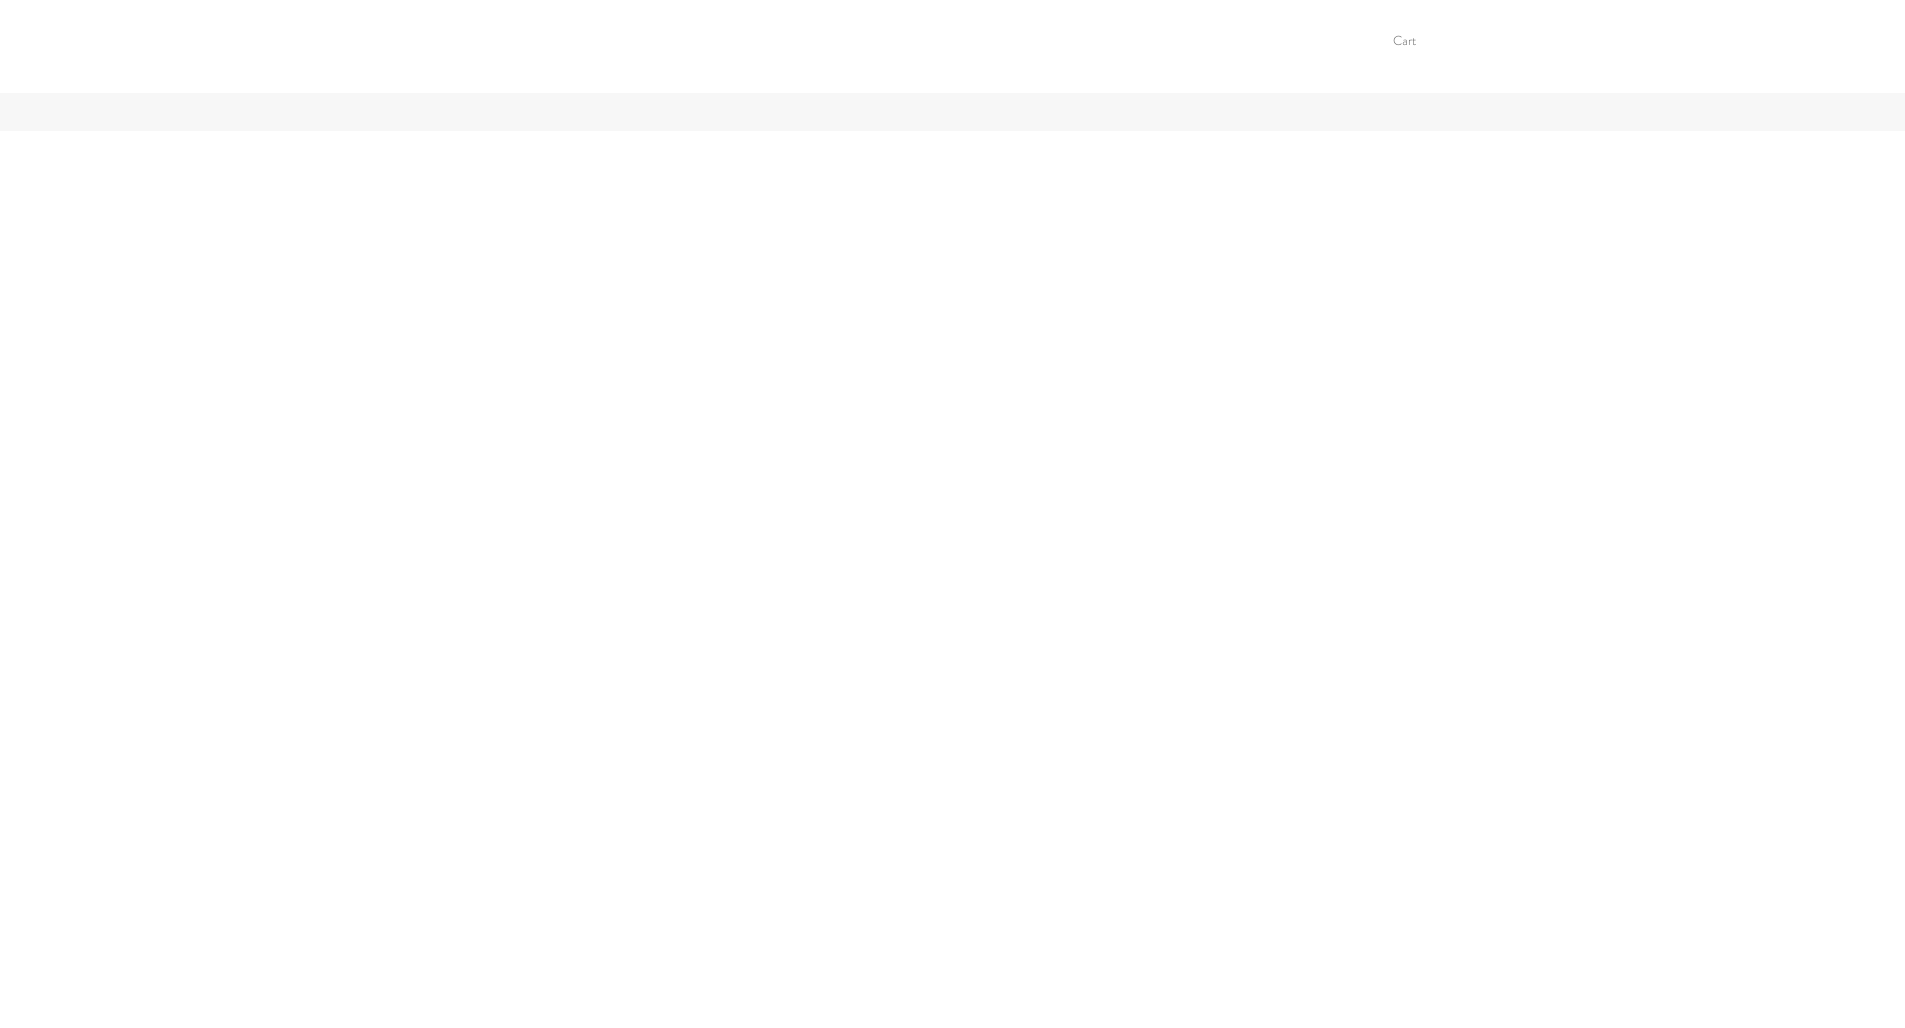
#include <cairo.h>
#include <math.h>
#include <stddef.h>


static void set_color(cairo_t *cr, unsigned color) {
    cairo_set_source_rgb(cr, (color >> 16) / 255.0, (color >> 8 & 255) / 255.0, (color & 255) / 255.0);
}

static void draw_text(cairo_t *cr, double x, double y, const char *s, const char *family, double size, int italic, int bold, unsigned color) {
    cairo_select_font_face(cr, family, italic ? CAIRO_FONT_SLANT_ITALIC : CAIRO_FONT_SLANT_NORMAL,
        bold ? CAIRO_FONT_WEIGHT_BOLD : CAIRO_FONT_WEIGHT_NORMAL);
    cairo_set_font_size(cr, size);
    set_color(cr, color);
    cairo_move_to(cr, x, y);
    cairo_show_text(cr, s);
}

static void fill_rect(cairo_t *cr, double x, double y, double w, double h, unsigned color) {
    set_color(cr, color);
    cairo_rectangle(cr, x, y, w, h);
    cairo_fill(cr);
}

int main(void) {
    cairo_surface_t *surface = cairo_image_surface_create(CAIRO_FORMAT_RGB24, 1905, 1028);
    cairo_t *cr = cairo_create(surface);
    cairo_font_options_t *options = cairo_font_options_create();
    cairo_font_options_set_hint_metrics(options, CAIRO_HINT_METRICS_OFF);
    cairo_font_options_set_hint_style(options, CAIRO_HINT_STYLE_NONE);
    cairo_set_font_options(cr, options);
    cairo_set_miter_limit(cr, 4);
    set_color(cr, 0xFFFFFF);
    cairo_paint(cr);
    draw_text(cr, 1393, 45, "Cart", "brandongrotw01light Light", 13, 0, 0, 0x636363);
    fill_rect(cr, 0, 93, 1905, 38, 0xF7F7F7);
    cairo_surface_write_to_png(surface, "output.png");
    cairo_font_options_destroy(options);
    cairo_destroy(cr);
    cairo_surface_destroy(surface);
    return 0;
}
